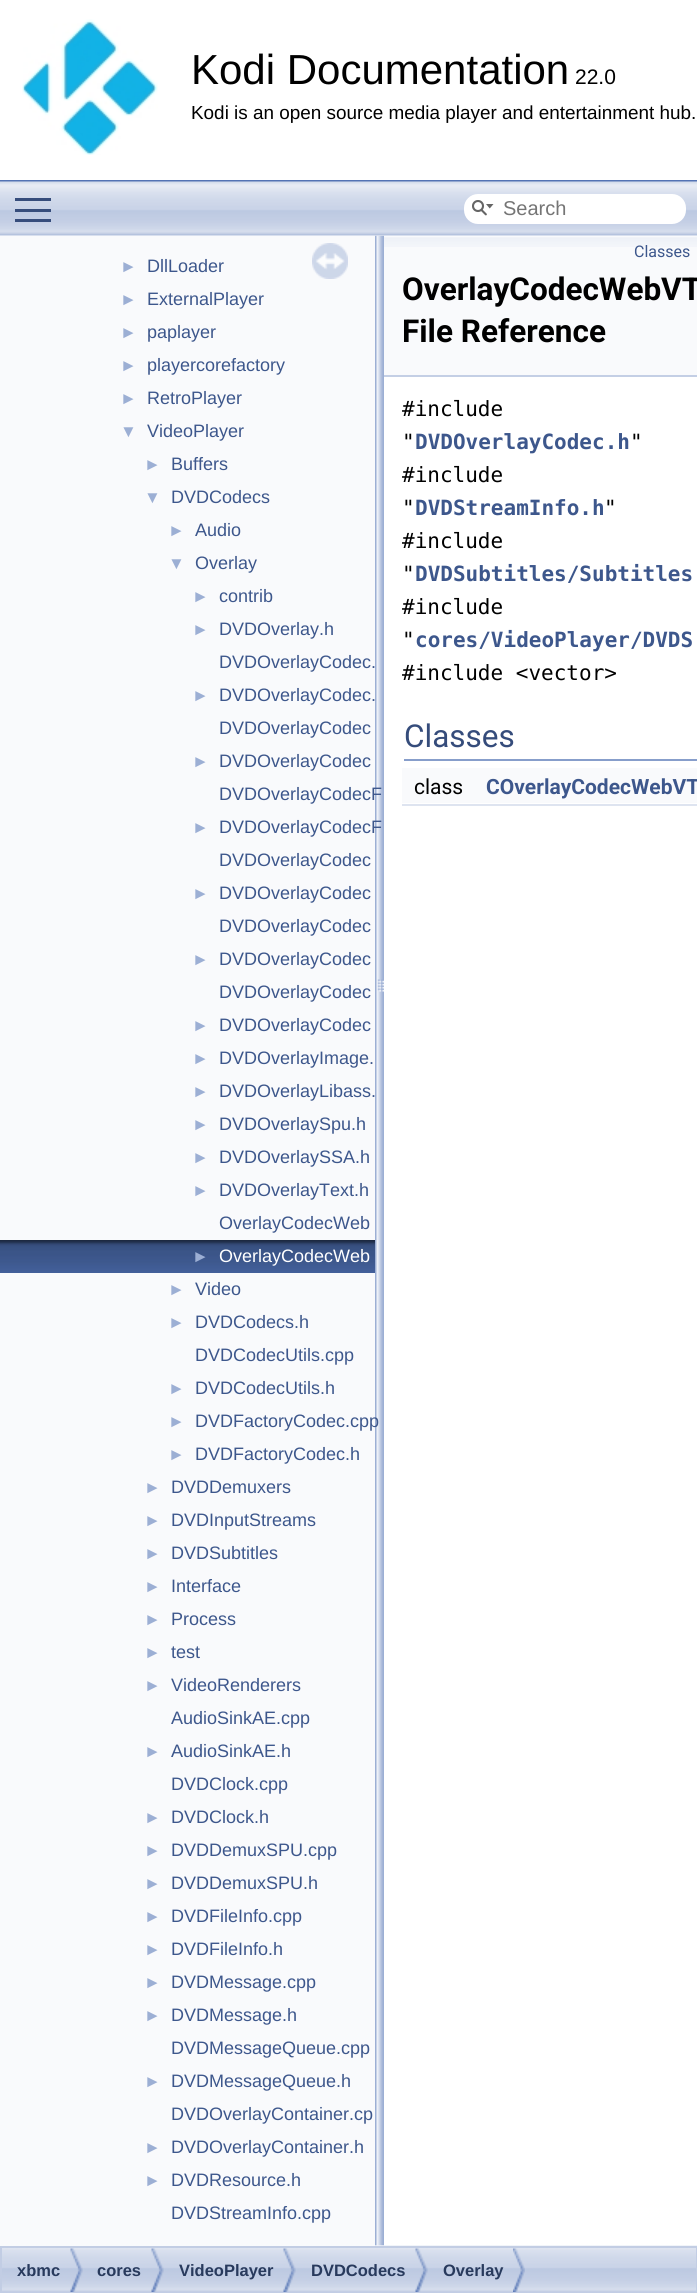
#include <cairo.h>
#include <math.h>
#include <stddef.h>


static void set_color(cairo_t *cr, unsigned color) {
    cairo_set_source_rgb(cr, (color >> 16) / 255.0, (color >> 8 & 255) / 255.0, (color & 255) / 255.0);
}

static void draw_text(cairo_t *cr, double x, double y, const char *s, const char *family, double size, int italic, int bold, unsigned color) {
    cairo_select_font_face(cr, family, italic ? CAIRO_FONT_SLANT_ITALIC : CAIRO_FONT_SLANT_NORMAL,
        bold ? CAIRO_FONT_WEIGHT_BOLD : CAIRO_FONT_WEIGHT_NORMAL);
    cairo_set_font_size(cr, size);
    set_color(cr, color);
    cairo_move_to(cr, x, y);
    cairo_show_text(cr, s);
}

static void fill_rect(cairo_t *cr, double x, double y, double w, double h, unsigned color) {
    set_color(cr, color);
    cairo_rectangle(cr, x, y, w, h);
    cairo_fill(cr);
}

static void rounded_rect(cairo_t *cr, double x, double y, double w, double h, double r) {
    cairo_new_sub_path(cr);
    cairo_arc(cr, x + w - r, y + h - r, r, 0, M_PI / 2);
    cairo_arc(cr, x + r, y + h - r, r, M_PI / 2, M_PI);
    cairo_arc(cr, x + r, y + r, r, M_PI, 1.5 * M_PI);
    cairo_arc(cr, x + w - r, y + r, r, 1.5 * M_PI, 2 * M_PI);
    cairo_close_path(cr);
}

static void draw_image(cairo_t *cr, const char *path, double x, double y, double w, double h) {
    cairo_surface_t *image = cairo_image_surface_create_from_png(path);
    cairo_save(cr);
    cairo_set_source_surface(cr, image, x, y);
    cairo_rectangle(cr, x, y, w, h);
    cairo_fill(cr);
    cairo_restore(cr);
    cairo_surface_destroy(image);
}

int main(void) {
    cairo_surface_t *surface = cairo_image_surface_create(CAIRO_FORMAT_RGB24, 697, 2293);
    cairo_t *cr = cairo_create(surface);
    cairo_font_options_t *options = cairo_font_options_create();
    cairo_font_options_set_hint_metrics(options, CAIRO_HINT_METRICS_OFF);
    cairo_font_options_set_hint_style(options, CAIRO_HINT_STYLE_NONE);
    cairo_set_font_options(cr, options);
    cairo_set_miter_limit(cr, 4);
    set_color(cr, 0xFFFFFF);
    cairo_paint(cr);
    fill_rect(cr, 0, 180, 697, 2, 0x5373B4);
    draw_image(cr, "assets/img1.png", 22, 19, 136, 136);
    draw_text(cr, 191, 84, "Kodi Documentation", "Liberation Sans", 42, 0, 0, 0x000000);
    draw_text(cr, 575, 84, "22.0", "Liberation Sans", 21, 0, 0, 0x000000);
    draw_text(cr, 191, 119, "Kodi is an open source media player and entertainment hub.", "Liberation Sans", 18.9, 0, 0, 0x000000);
    draw_image(cr, "assets/img8.png", 2, 2245, 695, 47);
    draw_image(cr, "assets/img6.png", 375, 235, 9, 2011);
    draw_image(cr, "assets/img2.png", 0, 181, 697, 55);
    fill_rect(cr, 15, 209, 36, 3, 0x364D7C);
    fill_rect(cr, 15, 198, 36, 3, 0x364D7C);
    fill_rect(cr, 15, 219, 36, 3, 0x364D7C);
    set_color(cr, 0xFFFFFF);
    rounded_rect(cr, 464, 194, 222, 30, 14);
    cairo_fill(cr);
    draw_image(cr, "assets/img3.png", 472, 200, 22, 16);
    draw_text(cr, 503, 215, "Search", "Liberation Sans", 20, 0, 0, 0x757575);
    fill_rect(cr, 0, 236, 375, 2010, 0xF9FAFC);
    draw_image(cr, "assets/img4.png", 312, 243, 36, 36);
    draw_text(cr, 120, 272, "►", "Liberation Sans", 17, 0, 0, 0x9CAFD4);
    draw_text(cr, 147, 272, "DllLoader", "Liberation Sans", 18, 0, 0, 0x3D578C);
    draw_text(cr, 120, 305, "►", "Liberation Sans", 17, 0, 0, 0x9CAFD4);
    draw_text(cr, 147, 305, "ExternalPlayer", "Liberation Sans", 18, 0, 0, 0x3D578C);
    draw_text(cr, 120, 338, "►", "Liberation Sans", 17, 0, 0, 0x9CAFD4);
    draw_text(cr, 147, 338, "paplayer", "Liberation Sans", 18, 0, 0, 0x3D578C);
    draw_text(cr, 120, 371, "►", "Liberation Sans", 17, 0, 0, 0x9CAFD4);
    draw_text(cr, 147, 371, "playercorefactory", "Liberation Sans", 18, 0, 0, 0x3D578C);
    draw_text(cr, 120, 404, "►", "Liberation Sans", 17, 0, 0, 0x9CAFD4);
    draw_text(cr, 147, 404, "RetroPlayer", "Liberation Sans", 18, 0, 0, 0x3D578C);
    draw_text(cr, 120, 437, "▼", "Liberation Sans", 17, 0, 0, 0x9CAFD4);
    draw_text(cr, 147, 437, "VideoPlayer", "Liberation Sans", 18, 0, 0, 0x3D578C);
    draw_text(cr, 144, 470, "►", "Liberation Sans", 17, 0, 0, 0x9CAFD4);
    draw_text(cr, 171, 470, "Buffers", "Liberation Sans", 18, 0, 0, 0x3D578C);
    draw_text(cr, 144, 503, "▼", "Liberation Sans", 17, 0, 0, 0x9CAFD4);
    draw_text(cr, 171, 503, "DVDCodecs", "Liberation Sans", 18, 0, 0, 0x3D578C);
    draw_text(cr, 168, 536, "►", "Liberation Sans", 17, 0, 0, 0x9CAFD4);
    draw_text(cr, 195, 536, "Audio", "Liberation Sans", 18, 0, 0, 0x3D578C);
    draw_text(cr, 168, 569, "▼", "Liberation Sans", 17, 0, 0, 0x9CAFD4);
    draw_text(cr, 195, 569, "Overlay", "Liberation Sans", 18, 0, 0, 0x3D578C);
    draw_text(cr, 192, 602, "►", "Liberation Sans", 17, 0, 0, 0x9CAFD4);
    draw_text(cr, 219, 602, "contrib", "Liberation Sans", 18, 0, 0, 0x3D578C);
    draw_text(cr, 192, 635, "►", "Liberation Sans", 17, 0, 0, 0x9CAFD4);
    draw_text(cr, 219, 635, "DVDOverlay.h", "Liberation Sans", 18, 0, 0, 0x3D578C);
    draw_text(cr, 219, 668, "DVDOverlayCodec.", "Liberation Sans", 18, 0, 0, 0x3D578C);
    draw_text(cr, 192, 701, "►", "Liberation Sans", 17, 0, 0, 0x9CAFD4);
    draw_text(cr, 219, 701, "DVDOverlayCodec.", "Liberation Sans", 18, 0, 0, 0x3D578C);
    draw_text(cr, 219, 734, "DVDOverlayCodec", "Liberation Sans", 18, 0, 0, 0x3D578C);
    draw_text(cr, 192, 767, "►", "Liberation Sans", 17, 0, 0, 0x9CAFD4);
    draw_text(cr, 219, 767, "DVDOverlayCodec", "Liberation Sans", 18, 0, 0, 0x3D578C);
    draw_text(cr, 219, 800, "DVDOverlayCodecF", "Liberation Sans", 18, 0, 0, 0x3D578C);
    draw_text(cr, 192, 833, "►", "Liberation Sans", 17, 0, 0, 0x9CAFD4);
    draw_text(cr, 219, 833, "DVDOverlayCodecF", "Liberation Sans", 18, 0, 0, 0x3D578C);
    draw_text(cr, 219, 866, "DVDOverlayCodec", "Liberation Sans", 18, 0, 0, 0x3D578C);
    draw_text(cr, 192, 899, "►", "Liberation Sans", 17, 0, 0, 0x9CAFD4);
    draw_text(cr, 219, 899, "DVDOverlayCodec", "Liberation Sans", 18, 0, 0, 0x3D578C);
    draw_text(cr, 219, 932, "DVDOverlayCodec", "Liberation Sans", 18, 0, 0, 0x3D578C);
    draw_text(cr, 192, 965, "►", "Liberation Sans", 17, 0, 0, 0x9CAFD4);
    draw_text(cr, 219, 965, "DVDOverlayCodec", "Liberation Sans", 18, 0, 0, 0x3D578C);
    draw_text(cr, 219, 998, "DVDOverlayCodec", "Liberation Sans", 18, 0, 0, 0x3D578C);
    draw_text(cr, 192, 1031, "►", "Liberation Sans", 17, 0, 0, 0x9CAFD4);
    draw_text(cr, 219, 1031, "DVDOverlayCodec", "Liberation Sans", 18, 0, 0, 0x3D578C);
    draw_text(cr, 192, 1064, "►", "Liberation Sans", 17, 0, 0, 0x9CAFD4);
    draw_text(cr, 219, 1064, "DVDOverlayImage.", "Liberation Sans", 18, 0, 0, 0x3D578C);
    draw_text(cr, 192, 1097, "►", "Liberation Sans", 17, 0, 0, 0x9CAFD4);
    draw_text(cr, 219, 1097, "DVDOverlayLibass.", "Liberation Sans", 18, 0, 0, 0x3D578C);
    draw_text(cr, 192, 1130, "►", "Liberation Sans", 17, 0, 0, 0x9CAFD4);
    draw_text(cr, 219, 1130, "DVDOverlaySpu.h", "Liberation Sans", 18, 0, 0, 0x3D578C);
    draw_text(cr, 192, 1163, "►", "Liberation Sans", 17, 0, 0, 0x9CAFD4);
    draw_text(cr, 219, 1163, "DVDOverlaySSA.h", "Liberation Sans", 18, 0, 0, 0x3D578C);
    draw_text(cr, 192, 1196, "►", "Liberation Sans", 17, 0, 0, 0x9CAFD4);
    draw_text(cr, 219, 1196, "DVDOverlayText.h", "Liberation Sans", 18, 0, 0, 0x3D578C);
    draw_text(cr, 219, 1229, "OverlayCodecWeb", "Liberation Sans", 18, 0, 0, 0x3D578C);
    draw_image(cr, "assets/img5.png", 0, 1240, 375, 33);
    draw_text(cr, 192, 1262, "►", "Liberation Sans", 17, 0, 0, 0x9CAFD4);
    draw_text(cr, 219, 1262, "OverlayCodecWeb", "Liberation Sans", 18, 0, 0, 0xFFFFFF);
    draw_text(cr, 168, 1295, "►", "Liberation Sans", 17, 0, 0, 0x9CAFD4);
    draw_text(cr, 195, 1295, "Video", "Liberation Sans", 18, 0, 0, 0x3D578C);
    draw_text(cr, 168, 1328, "►", "Liberation Sans", 17, 0, 0, 0x9CAFD4);
    draw_text(cr, 195, 1328, "DVDCodecs.h", "Liberation Sans", 18, 0, 0, 0x3D578C);
    draw_text(cr, 195, 1361, "DVDCodecUtils.cpp", "Liberation Sans", 18, 0, 0, 0x3D578C);
    draw_text(cr, 168, 1394, "►", "Liberation Sans", 17, 0, 0, 0x9CAFD4);
    draw_text(cr, 195, 1394, "DVDCodecUtils.h", "Liberation Sans", 18, 0, 0, 0x3D578C);
    draw_text(cr, 168, 1427, "►", "Liberation Sans", 17, 0, 0, 0x9CAFD4);
    draw_text(cr, 195, 1427, "DVDFactoryCodec.cpp", "Liberation Sans", 18, 0, 0, 0x3D578C);
    draw_text(cr, 168, 1460, "►", "Liberation Sans", 17, 0, 0, 0x9CAFD4);
    draw_text(cr, 195, 1460, "DVDFactoryCodec.h", "Liberation Sans", 18, 0, 0, 0x3D578C);
    draw_text(cr, 144, 1493, "►", "Liberation Sans", 17, 0, 0, 0x9CAFD4);
    draw_text(cr, 171, 1493, "DVDDemuxers", "Liberation Sans", 18, 0, 0, 0x3D578C);
    draw_text(cr, 144, 1526, "►", "Liberation Sans", 17, 0, 0, 0x9CAFD4);
    draw_text(cr, 171, 1526, "DVDInputStreams", "Liberation Sans", 18, 0, 0, 0x3D578C);
    draw_text(cr, 144, 1559, "►", "Liberation Sans", 17, 0, 0, 0x9CAFD4);
    draw_text(cr, 171, 1559, "DVDSubtitles", "Liberation Sans", 18, 0, 0, 0x3D578C);
    draw_text(cr, 144, 1592, "►", "Liberation Sans", 17, 0, 0, 0x9CAFD4);
    draw_text(cr, 171, 1592, "Interface", "Liberation Sans", 18, 0, 0, 0x3D578C);
    draw_text(cr, 144, 1625, "►", "Liberation Sans", 17, 0, 0, 0x9CAFD4);
    draw_text(cr, 171, 1625, "Process", "Liberation Sans", 18, 0, 0, 0x3D578C);
    draw_text(cr, 144, 1658, "►", "Liberation Sans", 17, 0, 0, 0x9CAFD4);
    draw_text(cr, 171, 1658, "test", "Liberation Sans", 18, 0, 0, 0x3D578C);
    draw_text(cr, 144, 1691, "►", "Liberation Sans", 17, 0, 0, 0x9CAFD4);
    draw_text(cr, 171, 1691, "VideoRenderers", "Liberation Sans", 18, 0, 0, 0x3D578C);
    draw_text(cr, 171, 1724, "AudioSinkAE.cpp", "Liberation Sans", 18, 0, 0, 0x3D578C);
    draw_text(cr, 144, 1757, "►", "Liberation Sans", 17, 0, 0, 0x9CAFD4);
    draw_text(cr, 171, 1757, "AudioSinkAE.h", "Liberation Sans", 18, 0, 0, 0x3D578C);
    draw_text(cr, 171, 1790, "DVDClock.cpp", "Liberation Sans", 18, 0, 0, 0x3D578C);
    draw_text(cr, 144, 1823, "►", "Liberation Sans", 17, 0, 0, 0x9CAFD4);
    draw_text(cr, 171, 1823, "DVDClock.h", "Liberation Sans", 18, 0, 0, 0x3D578C);
    draw_text(cr, 144, 1856, "►", "Liberation Sans", 17, 0, 0, 0x9CAFD4);
    draw_text(cr, 171, 1856, "DVDDemuxSPU.cpp", "Liberation Sans", 18, 0, 0, 0x3D578C);
    draw_text(cr, 144, 1889, "►", "Liberation Sans", 17, 0, 0, 0x9CAFD4);
    draw_text(cr, 171, 1889, "DVDDemuxSPU.h", "Liberation Sans", 18, 0, 0, 0x3D578C);
    draw_text(cr, 144, 1922, "►", "Liberation Sans", 17, 0, 0, 0x9CAFD4);
    draw_text(cr, 171, 1922, "DVDFileInfo.cpp", "Liberation Sans", 18, 0, 0, 0x3D578C);
    draw_text(cr, 144, 1955, "►", "Liberation Sans", 17, 0, 0, 0x9CAFD4);
    draw_text(cr, 171, 1955, "DVDFileInfo.h", "Liberation Sans", 18, 0, 0, 0x3D578C);
    draw_text(cr, 144, 1988, "►", "Liberation Sans", 17, 0, 0, 0x9CAFD4);
    draw_text(cr, 171, 1988, "DVDMessage.cpp", "Liberation Sans", 18, 0, 0, 0x3D578C);
    draw_text(cr, 144, 2021, "►", "Liberation Sans", 17, 0, 0, 0x9CAFD4);
    draw_text(cr, 171, 2021, "DVDMessage.h", "Liberation Sans", 18, 0, 0, 0x3D578C);
    draw_text(cr, 171, 2054, "DVDMessageQueue.cpp", "Liberation Sans", 18, 0, 0, 0x3D578C);
    draw_text(cr, 144, 2087, "►", "Liberation Sans", 17, 0, 0, 0x9CAFD4);
    draw_text(cr, 171, 2087, "DVDMessageQueue.h", "Liberation Sans", 18, 0, 0, 0x3D578C);
    draw_text(cr, 171, 2120, "DVDOverlayContainer.cp", "Liberation Sans", 18, 0, 0, 0x3D578C);
    draw_text(cr, 144, 2153, "►", "Liberation Sans", 17, 0, 0, 0x9CAFD4);
    draw_text(cr, 171, 2153, "DVDOverlayContainer.h", "Liberation Sans", 18, 0, 0, 0x3D578C);
    draw_text(cr, 144, 2186, "►", "Liberation Sans", 17, 0, 0, 0x9CAFD4);
    draw_text(cr, 171, 2186, "DVDResource.h", "Liberation Sans", 18, 0, 0, 0x3D578C);
    draw_text(cr, 171, 2219, "DVDStreamInfo.cpp", "Liberation Sans", 18, 0, 0, 0x3D578C);
    fill_rect(cr, 384, 236, 313, 139, 0xF9FAFC);
    draw_image(cr, "assets/img7.png", 384, 237, 313, 10);
    fill_rect(cr, 384, 375, 313, 2, 0xC4CFE5);
    draw_text(cr, 634, 257, "Classes", "Roboto", 16, 0, 0, 0x3D578C);
    draw_text(cr, 402, 300, "OverlayCodecWebVT", "Roboto", 31.5, 0, 1, 0x000000);
    draw_text(cr, 402, 342, "File Reference", "Roboto", 31.5, 0, 1, 0x000000);
    draw_text(cr, 402, 416, "#include", "DejaVu Sans Mono", 21, 0, 0, 0x000000);
    draw_text(cr, 402, 449, "\"", "DejaVu Sans Mono", 21, 0, 0, 0x000000);
    draw_text(cr, 415, 449, "DVDOverlayCodec.h", "DejaVu Sans Mono", 21, 0, 1, 0x3D578C);
    draw_text(cr, 630, 449, "\"", "DejaVu Sans Mono", 21, 0, 0, 0x000000);
    draw_text(cr, 402, 482, "#include", "DejaVu Sans Mono", 21, 0, 0, 0x000000);
    draw_text(cr, 402, 515, "\"", "DejaVu Sans Mono", 21, 0, 0, 0x000000);
    draw_text(cr, 415, 515, "DVDStreamInfo.h", "DejaVu Sans Mono", 21, 0, 1, 0x3D578C);
    draw_text(cr, 604, 515, "\"", "DejaVu Sans Mono", 21, 0, 0, 0x000000);
    draw_text(cr, 402, 548, "#include", "DejaVu Sans Mono", 21, 0, 0, 0x000000);
    draw_text(cr, 402, 581, "\"", "DejaVu Sans Mono", 21, 0, 0, 0x000000);
    draw_text(cr, 415, 581, "DVDSubtitles/Subtitles", "DejaVu Sans Mono", 21, 0, 1, 0x3D578C);
    draw_text(cr, 402, 614, "#include", "DejaVu Sans Mono", 21, 0, 0, 0x000000);
    draw_text(cr, 402, 647, "\"", "DejaVu Sans Mono", 21, 0, 0, 0x000000);
    draw_text(cr, 415, 647, "cores/VideoPlayer/DVDS", "DejaVu Sans Mono", 21, 0, 1, 0x3D578C);
    draw_text(cr, 402, 680, "#include <vector>", "DejaVu Sans Mono", 21, 0, 0, 0x000000);
    fill_rect(cr, 404, 759, 293, 2, 0x879ECB);
    draw_text(cr, 404, 747, "Classes", "Roboto", 31.5, 0, 0, 0x354C7B);
    fill_rect(cr, 402, 768, 295, 35, 0xF9FAFC);
    draw_text(cr, 414, 794, "class", "Roboto", 21, 0, 0, 0x000000);
    draw_text(cr, 486, 794, "COverlayCodecWebVT", "Roboto", 21, 0, 1, 0x3D578C);
    fill_rect(cr, 402, 804, 295, 2, 0xDEE4F0);
    cairo_rectangle(cr, 1, 2247, 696, 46);
    set_color(cr, 0xC2CDE4);
    cairo_stroke(cr);
    draw_image(cr, "assets/img9.png", 70, 2248, 13, 44);
    draw_text(cr, 17, 2276, "xbmc", "Liberation Sans", 16.5, 0, 1, 0x283A5D);
    draw_image(cr, "assets/img9.png", 151, 2248, 13, 44);
    draw_text(cr, 97, 2276, "cores", "Liberation Sans", 16.5, 0, 1, 0x283A5D);
    draw_image(cr, "assets/img10.png", 283, 2248, 13, 44);
    draw_text(cr, 179, 2276, "VideoPlayer", "Liberation Sans", 16.5, 0, 1, 0x283A5D);
    draw_image(cr, "assets/img10.png", 415, 2248, 13, 44);
    draw_text(cr, 311, 2276, "DVDCodecs", "Liberation Sans", 16.5, 0, 1, 0x283A5D);
    draw_image(cr, "assets/img11.png", 513, 2248, 12, 44);
    draw_text(cr, 443, 2276, "Overlay", "Liberation Sans", 16.5, 0, 1, 0x283A5D);
    cairo_surface_write_to_png(surface, "output.png");
    cairo_font_options_destroy(options);
    cairo_destroy(cr);
    cairo_surface_destroy(surface);
    return 0;
}
